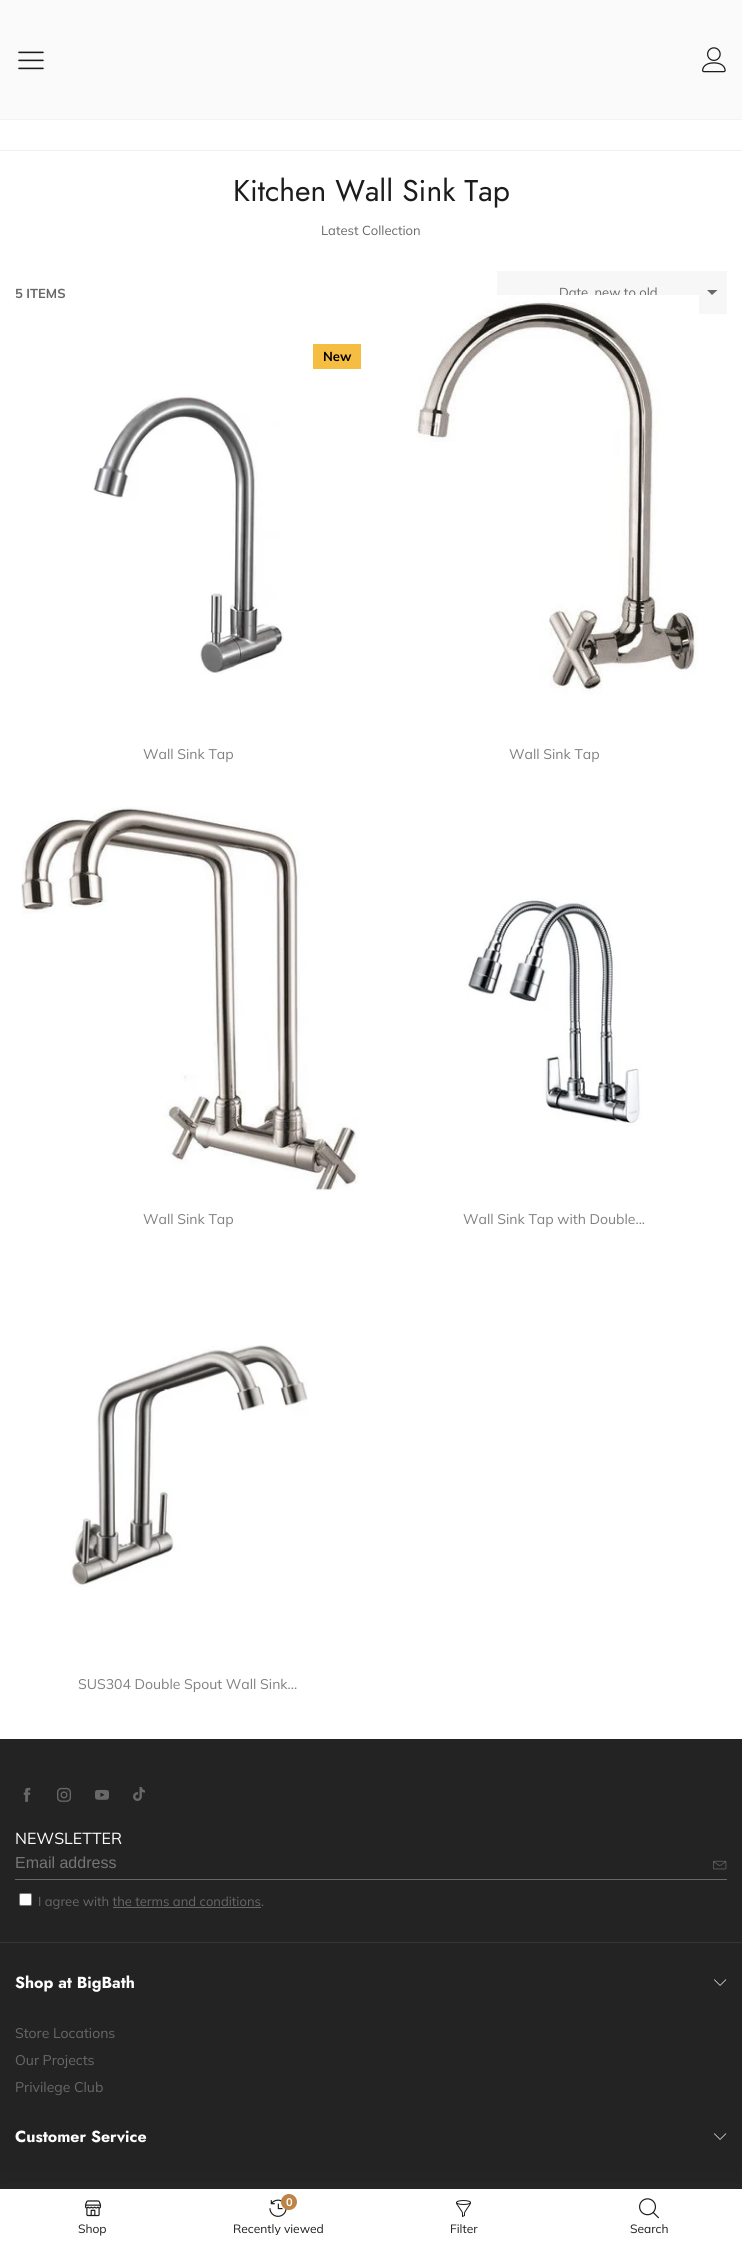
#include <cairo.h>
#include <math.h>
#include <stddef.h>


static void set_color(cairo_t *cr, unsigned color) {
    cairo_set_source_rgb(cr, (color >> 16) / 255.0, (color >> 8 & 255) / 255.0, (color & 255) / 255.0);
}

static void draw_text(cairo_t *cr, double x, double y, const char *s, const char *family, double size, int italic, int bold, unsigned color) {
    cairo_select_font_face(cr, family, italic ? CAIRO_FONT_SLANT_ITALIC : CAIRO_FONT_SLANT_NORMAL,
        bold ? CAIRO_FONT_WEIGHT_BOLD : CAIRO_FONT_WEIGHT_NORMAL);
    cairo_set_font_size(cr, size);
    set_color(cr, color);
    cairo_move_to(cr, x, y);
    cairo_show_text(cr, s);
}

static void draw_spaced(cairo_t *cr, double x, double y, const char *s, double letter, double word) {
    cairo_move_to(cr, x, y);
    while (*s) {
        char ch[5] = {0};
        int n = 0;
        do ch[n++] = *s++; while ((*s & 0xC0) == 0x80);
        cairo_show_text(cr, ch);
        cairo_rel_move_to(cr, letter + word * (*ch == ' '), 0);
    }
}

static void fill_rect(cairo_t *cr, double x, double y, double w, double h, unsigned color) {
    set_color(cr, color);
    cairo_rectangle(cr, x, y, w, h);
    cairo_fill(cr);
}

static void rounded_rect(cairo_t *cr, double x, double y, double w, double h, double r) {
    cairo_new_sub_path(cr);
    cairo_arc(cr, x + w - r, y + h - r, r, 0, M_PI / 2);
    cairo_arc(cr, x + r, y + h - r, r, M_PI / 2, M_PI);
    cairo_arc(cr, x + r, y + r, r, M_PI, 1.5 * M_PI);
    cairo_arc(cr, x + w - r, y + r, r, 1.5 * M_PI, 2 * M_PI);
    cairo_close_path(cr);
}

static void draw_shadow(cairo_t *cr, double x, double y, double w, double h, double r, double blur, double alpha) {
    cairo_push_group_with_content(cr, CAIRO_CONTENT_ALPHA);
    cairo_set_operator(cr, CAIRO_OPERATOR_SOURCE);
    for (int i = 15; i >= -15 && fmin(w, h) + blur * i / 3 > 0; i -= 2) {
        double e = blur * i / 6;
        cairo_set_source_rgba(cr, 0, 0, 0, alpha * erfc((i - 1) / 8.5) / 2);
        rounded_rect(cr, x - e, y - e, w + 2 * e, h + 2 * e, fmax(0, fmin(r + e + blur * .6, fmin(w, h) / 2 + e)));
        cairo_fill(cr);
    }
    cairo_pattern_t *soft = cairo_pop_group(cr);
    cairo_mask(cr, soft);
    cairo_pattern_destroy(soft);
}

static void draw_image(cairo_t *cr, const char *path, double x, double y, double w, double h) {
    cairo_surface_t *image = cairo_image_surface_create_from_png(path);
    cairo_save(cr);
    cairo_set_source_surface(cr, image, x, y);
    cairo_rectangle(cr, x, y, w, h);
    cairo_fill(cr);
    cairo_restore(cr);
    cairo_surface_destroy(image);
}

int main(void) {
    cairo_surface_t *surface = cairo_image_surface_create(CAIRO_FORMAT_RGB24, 742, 2244);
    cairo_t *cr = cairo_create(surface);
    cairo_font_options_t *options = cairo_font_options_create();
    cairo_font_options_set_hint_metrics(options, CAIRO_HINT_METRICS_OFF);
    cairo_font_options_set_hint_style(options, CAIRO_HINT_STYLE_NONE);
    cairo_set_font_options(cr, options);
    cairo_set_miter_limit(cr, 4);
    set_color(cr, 0xFFFFFF);
    cairo_paint(cr);
    fill_rect(cr, 0, 0, 742, 119, 0xFAFAFA);
    fill_rect(cr, 0, 119, 742, 1, 0xF3F3F3);
    draw_image(cr, "assets/img1.png", 18, 51, 26, 19);
    draw_image(cr, "assets/img2.png", 702, 47, 24, 26);
    fill_rect(cr, 0, 150, 742, 1, 0xF0F0F0);
    draw_text(cr, 233, 201, "Kitchen Wall Sink Tap", "Jost", 30, 0, 0, 0x1C1C1C);
    draw_text(cr, 321, 235, "Latest Collection", "Muli", 13, 0, 0, 0x686868);
    draw_text(cr, 15, 298, "5 ITEMS", "Muli", 13, 0, 1, 0x686868);
    fill_rect(cr, 497, 271, 230, 43, 0xF7F7F7);
    draw_text(cr, 559, 297, "Date, new to old", "Muli", 13, 0, 0, 0x686868);
    cairo_new_path(cr);
    cairo_move_to(cr, 707, 290);
    cairo_line_to(cr, 717.5, 290);
    cairo_line_to(cr, 712, 295);
    cairo_close_path(cr);
    cairo_fill(cr);
    fill_rect(cr, 313, 344, 48, 25, 0xF5BE42);
    draw_text(cr, 323, 361, "New", "Muli", 13, 0, 1, 0x000000);
    draw_image(cr, "assets/img3.png", 92, 395, 192, 279);
    draw_text(cr, 143, 759, "Wall Sink Tap", "Muli", 14, 0, 0, 0x808080);
    draw_image(cr, "assets/img4.png", 416, 295, 283, 400);
    draw_text(cr, 509, 759, "Wall Sink Tap", "Muli", 14, 0, 0, 0x808080);
    draw_image(cr, "assets/img5.png", 21, 806, 338, 385);
    draw_text(cr, 143, 1224, "Wall Sink Tap", "Muli", 14, 0, 0, 0x808080);
    draw_image(cr, "assets/img6.png", 466, 898, 176, 228);
    draw_text(cr, 463, 1224, "Wall Sink Tap with Double...", "Muli", 14, 0, 0, 0x808080);
    draw_image(cr, "assets/img7.png", 69, 1345, 239, 242);
    draw_text(cr, 78, 1689, "SUS304 Double Spout Wall Sink...", "Muli", 14, 0, 0, 0x808080);
    fill_rect(cr, 0, 1739, 742, 450, 0x232323);
    set_color(cr, 0x686868);
    draw_shadow(cr, 0, 2188, 742, 55, 0, 9.5, 0.1);
    fill_rect(cr, 0, 2189, 742, 55, 0xFFFFFF);
    draw_image(cr, "assets/img8.png", 84, 2200, 18, 17);
    draw_text(cr, 78, 2233, "Shop", "Muli", 12, 0, 0, 0x1C1C1C);
    draw_image(cr, "assets/img9.png", 269, 2199, 18, 18);
    set_color(cr, 0xBD8448);
    cairo_arc(cr, 289, 2202, 8, 0, 2 * M_PI);
    cairo_fill(cr);
    cairo_select_font_face(cr, "Muli", CAIRO_FONT_SLANT_NORMAL, CAIRO_FONT_WEIGHT_BOLD);
    cairo_set_font_size(cr, 11);
    set_color(cr, 0xFFFFFF);
    draw_spaced(cr, 286, 2206, "0", -1, 0);
    cairo_save(cr);
    cairo_rectangle(cr, 186, 2218, 185, 17);
    cairo_clip(cr);
    draw_text(cr, 233, 2233, "Recently viewed", "Muli", 12, 0, 0, 0x1C1C1C);
    cairo_restore(cr);
    draw_image(cr, "assets/img10.png", 456, 2200, 15, 17);
    draw_text(cr, 450, 2233, "Filter", "Muli", 12, 0, 0, 0x1C1C1C);
    draw_image(cr, "assets/img11.png", 639, 2198, 20, 21);
    draw_text(cr, 630, 2233, "Search", "Muli", 12, 0, 0, 0x1C1C1C);
    draw_image(cr, "assets/img12.png", 23, 1787, 8, 15);
    draw_image(cr, "assets/img13.png", 57, 1787, 14, 15);
    draw_image(cr, "assets/img14.png", 95, 1789, 14, 11);
    draw_image(cr, "assets/img15.png", 133, 1787, 12, 14);
    draw_text(cr, 15, 1844, "NEWSLETTER", "Muli", 16, 0, 0, 0xFFFFFF);
    fill_rect(cr, 15, 1879, 712, 1, 0x686868);
    draw_text(cr, 15, 1868, "Email address", "Liberation Sans", 16, 0, 0, 0x757575);
    draw_image(cr, "assets/img16.png", 713, 1860, 14, 10);
    set_color(cr, 0xFFFFFF);
    rounded_rect(cr, 19.5, 1893.5, 12, 12, 1.5);
    cairo_fill_preserve(cr);
    set_color(cr, 0x767676);
    cairo_set_line_width(cr, 1);
    cairo_stroke(cr);
    draw_text(cr, 38, 1906, "I agree with the terms and conditions.", "Muli", 13, 0, 0, 0x686868);
    fill_rect(cr, 113, 1907, 148, 1, 0x686868);
    fill_rect(cr, 0, 1942, 742, 1, 0x363636);
    draw_text(cr, 15, 1988, "Shop at BigBath", "Jost", 16, 0, 1, 0xFFFFFF);
    draw_image(cr, "assets/img17.png", 714, 1979, 13, 7);
    draw_text(cr, 15, 2038, "Store Locations", "Muli", 14, 0, 0, 0x686868);
    draw_text(cr, 15, 2065, "Our Projects", "Muli", 14, 0, 0, 0x686868);
    draw_text(cr, 15, 2092, "Privilege Club", "Muli", 14, 0, 0, 0x686868);
    draw_text(cr, 15, 2142, "Customer Service", "Jost", 16, 0, 1, 0xFFFFFF);
    draw_image(cr, "assets/img17.png", 714, 2133, 13, 7);
    cairo_surface_write_to_png(surface, "output.png");
    cairo_font_options_destroy(options);
    cairo_destroy(cr);
    cairo_surface_destroy(surface);
    return 0;
}
